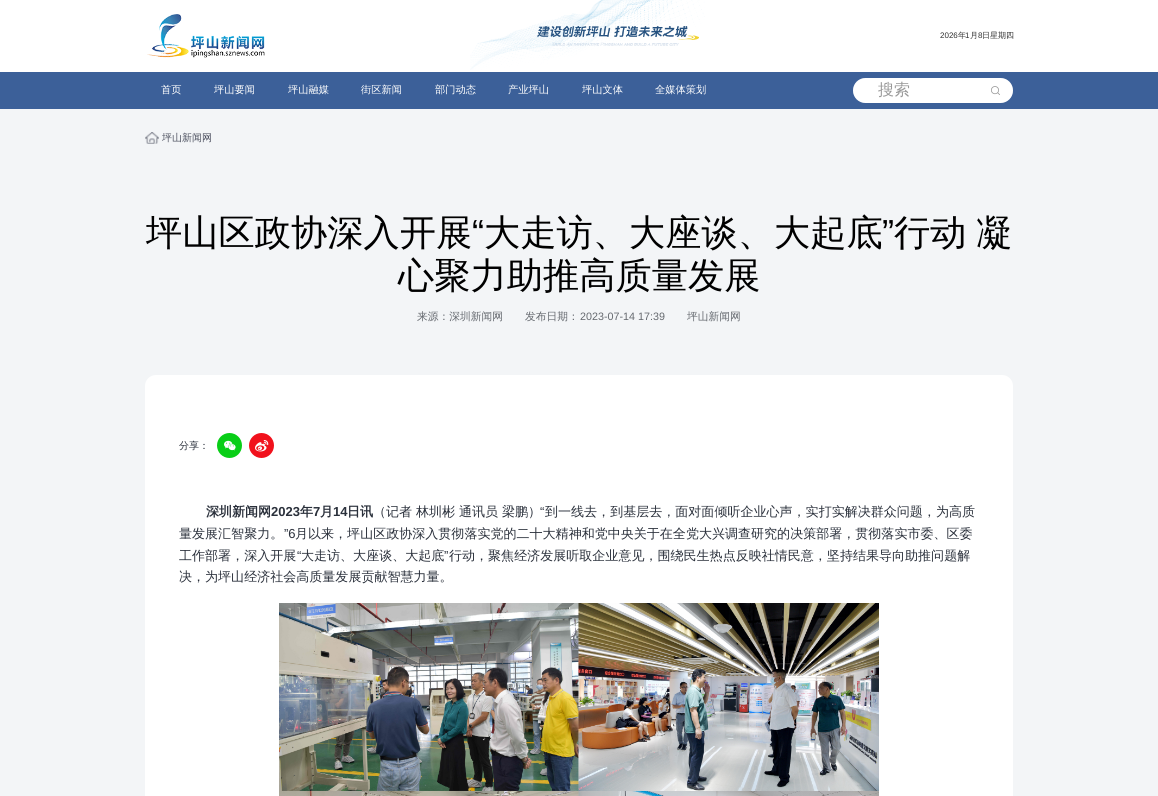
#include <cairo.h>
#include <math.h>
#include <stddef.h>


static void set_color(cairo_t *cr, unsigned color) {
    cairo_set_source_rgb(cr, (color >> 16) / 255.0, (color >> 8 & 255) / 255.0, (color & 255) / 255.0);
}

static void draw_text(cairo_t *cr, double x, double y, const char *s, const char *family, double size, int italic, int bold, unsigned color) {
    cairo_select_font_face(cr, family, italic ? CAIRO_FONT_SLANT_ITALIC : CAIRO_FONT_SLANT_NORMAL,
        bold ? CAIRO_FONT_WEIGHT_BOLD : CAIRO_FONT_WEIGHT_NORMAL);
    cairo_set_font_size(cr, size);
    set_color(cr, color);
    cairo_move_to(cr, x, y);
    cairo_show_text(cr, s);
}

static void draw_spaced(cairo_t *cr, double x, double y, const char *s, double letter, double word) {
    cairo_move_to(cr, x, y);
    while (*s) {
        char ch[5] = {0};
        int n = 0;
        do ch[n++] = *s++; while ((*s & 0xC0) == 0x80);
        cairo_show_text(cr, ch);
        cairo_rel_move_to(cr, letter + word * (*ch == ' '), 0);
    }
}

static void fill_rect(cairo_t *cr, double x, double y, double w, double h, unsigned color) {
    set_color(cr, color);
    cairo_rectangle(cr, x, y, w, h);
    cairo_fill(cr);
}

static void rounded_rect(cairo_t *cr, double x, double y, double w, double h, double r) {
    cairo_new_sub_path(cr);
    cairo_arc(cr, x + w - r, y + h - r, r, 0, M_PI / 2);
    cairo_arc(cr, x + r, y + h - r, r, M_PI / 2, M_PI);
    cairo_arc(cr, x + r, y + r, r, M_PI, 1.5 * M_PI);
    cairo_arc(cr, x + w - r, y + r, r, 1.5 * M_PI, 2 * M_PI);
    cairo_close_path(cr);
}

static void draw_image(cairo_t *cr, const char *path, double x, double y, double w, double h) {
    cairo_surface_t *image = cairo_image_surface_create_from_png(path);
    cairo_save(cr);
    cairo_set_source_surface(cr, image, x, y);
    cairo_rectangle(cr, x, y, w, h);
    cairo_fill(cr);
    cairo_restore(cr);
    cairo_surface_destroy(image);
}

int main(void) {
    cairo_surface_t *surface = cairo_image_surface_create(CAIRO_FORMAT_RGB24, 1158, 796);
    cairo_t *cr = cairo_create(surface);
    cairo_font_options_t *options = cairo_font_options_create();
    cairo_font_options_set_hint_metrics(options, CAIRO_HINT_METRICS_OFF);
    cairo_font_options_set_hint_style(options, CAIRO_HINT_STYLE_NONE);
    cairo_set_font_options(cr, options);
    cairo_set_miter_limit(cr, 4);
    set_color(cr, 0xFFFFFF);
    cairo_paint(cr);
    draw_image(cr, "assets/img1.png", 147, 14, 118, 44);
    draw_image(cr, "assets/img2.png", 470, 0, 235, 70);
    draw_text(cr, 940, 38, "2026", "Liberation Sans", 8, 0, 0, 0x303030);
    draw_text(cr, 958, 38, "年", "WenQuanYi Zen Hei Medium", 8, 0, 0, 0x303030);
    draw_text(cr, 965, 38, "1", "Liberation Sans", 8, 0, 0, 0x303030);
    draw_text(cr, 970, 38, "月", "WenQuanYi Zen Hei Medium", 8, 0, 0, 0x303030);
    draw_text(cr, 978, 38, "8", "Liberation Sans", 8, 0, 0, 0x303030);
    draw_text(cr, 982, 38, "日星期四", "WenQuanYi Zen Hei Medium", 8, 0, 0, 0x303030);
    fill_rect(cr, 0, 72, 1158, 37, 0x3C6099);
    draw_text(cr, 161, 93, "首页", "WenQuanYi Zen Hei Medium", 10.25, 0, 0, 0xFFFFFF);
    draw_text(cr, 214, 93, "坪山要闻", "WenQuanYi Zen Hei Medium", 10.25, 0, 0, 0xFFFFFF);
    draw_text(cr, 288, 93, "坪山融媒", "WenQuanYi Zen Hei Medium", 10.25, 0, 0, 0xFFFFFF);
    draw_text(cr, 361, 93, "街区新闻", "WenQuanYi Zen Hei Medium", 10.25, 0, 0, 0xFFFFFF);
    draw_text(cr, 435, 93, "部门动态", "WenQuanYi Zen Hei Medium", 10.25, 0, 0, 0xFFFFFF);
    draw_text(cr, 508, 93, "产业坪山", "WenQuanYi Zen Hei Medium", 10.25, 0, 0, 0xFFFFFF);
    draw_text(cr, 582, 93, "坪山文体", "WenQuanYi Zen Hei Medium", 10.25, 0, 0, 0xFFFFFF);
    draw_text(cr, 655, 93, "全媒体策划", "WenQuanYi Zen Hei Medium", 10.25, 0, 0, 0xFFFFFF);
    rounded_rect(cr, 853, 78, 160, 25, 12.5);
    cairo_fill(cr);
    rounded_rect(cr, 853.5, 78.5, 159, 24, 12);
    cairo_set_source_rgba(cr, 1, 1, 1, 0.3);
    cairo_set_line_width(cr, 1);
    cairo_stroke(cr);
    draw_text(cr, 878, 95, "搜索", "WenQuanYi Zen Hei Medium", 16, 0, 0, 0x999999);
    draw_image(cr, "assets/img3.png", 991, 86, 9, 9);
    fill_rect(cr, 0, 109, 1158, 687, 0xF3F5F7);
    draw_image(cr, "assets/img4.png", 145, 132, 14, 12);
    draw_text(cr, 162, 141, "坪山新闻网", "WenQuanYi Zen Hei Medium", 10, 0, 0, 0x4C505F);
    draw_text(cr, 146, 245, "坪山区政协深入开展", "WenQuanYi Zen Hei Medium", 36.25, 0, 0, 0x000000);
    draw_text(cr, 472, 245, "“", "Liberation Sans", 36.25, 0, 0, 0x000000);
    draw_text(cr, 484, 245, "大走访、大座谈、大起底", "WenQuanYi Zen Hei Medium", 36.25, 0, 0, 0x000000);
    draw_text(cr, 882, 245, "”", "Liberation Sans", 36.25, 0, 0, 0x000000);
    cairo_select_font_face(cr, "WenQuanYi Zen Hei Medium", CAIRO_FONT_SLANT_NORMAL, CAIRO_FONT_WEIGHT_NORMAL);
    draw_spaced(cr, 894, 245, "行动 凝", 0, -1);
    draw_text(cr, 398, 288, "心聚力助推高质量发展", "WenQuanYi Zen Hei Medium", 36.25, 0, 0, 0x000000);
    draw_text(cr, 417, 320, "来源：深圳新闻网", "WenQuanYi Zen Hei Medium", 10.75, 0, 0, 0x65696F);
    draw_text(cr, 525, 320, "发布日期：", "WenQuanYi Zen Hei Medium", 10.75, 0, 0, 0x65696F);
    draw_text(cr, 580, 320, "2023-07-14 17:39", "Liberation Sans", 10.75, 0, 0, 0x65696F);
    draw_text(cr, 687, 320, "坪山新闻网", "WenQuanYi Zen Hei Medium", 10.75, 0, 0, 0x65696F);
    set_color(cr, 0xFFFFFF);
    rounded_rect(cr, 145, 375, 868, 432, 11);
    cairo_fill(cr);
    draw_text(cr, 179, 449, "分享：", "WenQuanYi Zen Hei Medium", 10, 0, 0, 0x2A303B);
    set_color(cr, 0x09CE17);
    cairo_new_path(cr);
    cairo_arc(cr, 229.5, 445.5, 12.5, 0, 2 * M_PI);
    cairo_fill(cr);
    draw_image(cr, "assets/img5.png", 224, 440, 12, 11);
    set_color(cr, 0xF1111C);
    cairo_arc(cr, 261.5, 445.5, 12.5, 0, 2 * M_PI);
    cairo_fill(cr);
    draw_image(cr, "assets/img6.png", 255, 440, 14, 12);
    draw_text(cr, 206, 516, "深圳新闻网", "WenQuanYi Zen Hei", 13.03, 0, 1, 0x2A303B);
    draw_text(cr, 271, 516, "2023", "Liberation Sans", 13.03, 0, 1, 0x2A303B);
    draw_text(cr, 300, 516, "年", "WenQuanYi Zen Hei", 13.03, 0, 1, 0x2A303B);
    draw_text(cr, 313, 516, "7", "Liberation Sans", 13.03, 0, 1, 0x2A303B);
    draw_text(cr, 320, 516, "月", "WenQuanYi Zen Hei", 13.03, 0, 1, 0x2A303B);
    draw_text(cr, 333, 516, "14", "Liberation Sans", 13.03, 0, 1, 0x2A303B);
    draw_text(cr, 347, 516, "日讯", "WenQuanYi Zen Hei", 13.03, 0, 1, 0x2A303B);
    draw_text(cr, 373, 516, "（记者", "WenQuanYi Zen Hei Medium", 13.03, 0, 0, 0x2A303B);
    draw_text(cr, 416, 516, "林圳彬 通讯员 梁鹏）", "WenQuanYi Zen Hei Medium", 13.03, 0, 0, 0x2A303B);
    draw_text(cr, 540, 516, "“", "Liberation Sans", 13.03, 0, 0, 0x2A303B);
    draw_text(cr, 545, 516, "到一线去，到基层去，面对面倾听企业心声，实打实解决群众问题，为高质", "WenQuanYi Zen Hei Medium", 13.03, 0, 0, 0x2A303B);
    draw_text(cr, 179, 538, "量发展汇智聚力。", "WenQuanYi Zen Hei Medium", 13.03, 0, 0, 0x2A303B);
    draw_text(cr, 284, 538, "”6", "Liberation Sans", 13.03, 0, 0, 0x2A303B);
    draw_text(cr, 295, 538, "月以来，坪山区政协深入贯彻落实党的二十大精神和党中央关于在全党大兴调查研究的决策部署，贯彻落实市委、区委", "WenQuanYi Zen Hei Medium", 13.03, 0, 0, 0x2A303B);
    draw_text(cr, 179, 560, "工作部署，深入开展", "WenQuanYi Zen Hei Medium", 13.03, 0, 0, 0x2A303B);
    draw_text(cr, 297, 560, "“", "Liberation Sans", 13.03, 0, 0, 0x2A303B);
    draw_text(cr, 301, 560, "大走访、大座谈、大起底", "WenQuanYi Zen Hei Medium", 13.03, 0, 0, 0x2A303B);
    draw_text(cr, 444, 560, "”", "Liberation Sans", 13.03, 0, 0, 0x2A303B);
    draw_text(cr, 449, 560, "行动，聚焦经济发展听取企业意见，围绕民生热点反映社情民意，坚持结果导向助推问题解", "WenQuanYi Zen Hei Medium", 13.03, 0, 0, 0x2A303B);
    draw_text(cr, 179, 581, "决，为坪山经济社会高质量发展贡献智慧力量。", "WenQuanYi Zen Hei Medium", 13.03, 0, 0, 0x2A303B);
    draw_image(cr, "assets/img7.png", 279, 603, 600, 193);
    cairo_surface_write_to_png(surface, "output.png");
    cairo_font_options_destroy(options);
    cairo_destroy(cr);
    cairo_surface_destroy(surface);
    return 0;
}
